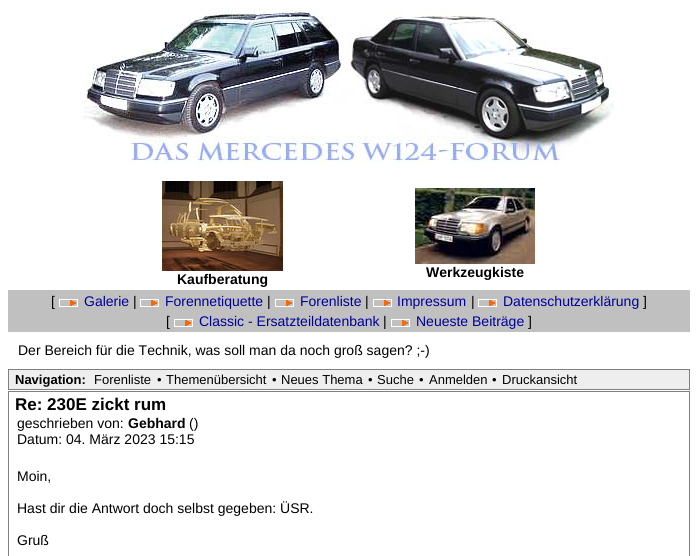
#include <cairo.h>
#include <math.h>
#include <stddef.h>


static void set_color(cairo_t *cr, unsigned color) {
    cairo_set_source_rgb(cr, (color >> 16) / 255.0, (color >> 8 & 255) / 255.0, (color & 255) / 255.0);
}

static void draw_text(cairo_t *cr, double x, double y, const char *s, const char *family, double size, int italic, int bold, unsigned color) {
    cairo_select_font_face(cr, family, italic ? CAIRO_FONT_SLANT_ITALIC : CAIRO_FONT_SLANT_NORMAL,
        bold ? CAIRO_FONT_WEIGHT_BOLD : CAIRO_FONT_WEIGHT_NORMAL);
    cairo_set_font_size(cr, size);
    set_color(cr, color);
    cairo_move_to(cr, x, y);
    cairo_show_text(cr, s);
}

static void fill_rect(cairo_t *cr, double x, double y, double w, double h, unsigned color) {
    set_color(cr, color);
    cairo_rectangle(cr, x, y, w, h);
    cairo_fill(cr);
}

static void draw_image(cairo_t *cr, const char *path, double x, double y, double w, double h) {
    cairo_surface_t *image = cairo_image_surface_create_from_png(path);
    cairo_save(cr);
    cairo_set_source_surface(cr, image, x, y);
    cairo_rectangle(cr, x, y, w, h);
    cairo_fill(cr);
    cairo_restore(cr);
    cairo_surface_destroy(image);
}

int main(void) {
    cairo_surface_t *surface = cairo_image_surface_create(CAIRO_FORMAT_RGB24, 698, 556);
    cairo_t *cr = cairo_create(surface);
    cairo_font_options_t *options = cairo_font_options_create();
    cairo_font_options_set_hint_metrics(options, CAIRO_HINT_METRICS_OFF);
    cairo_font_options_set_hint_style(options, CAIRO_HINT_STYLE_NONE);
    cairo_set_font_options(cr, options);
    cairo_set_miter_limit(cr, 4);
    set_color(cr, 0xFFFFFF);
    cairo_paint(cr);
    draw_image(cr, "assets/img1.png", 84, 8, 530, 154);
    draw_image(cr, "assets/img2.png", 162, 181, 121, 90);
    draw_text(cr, 177, 284, "Kaufberatung", "Liberation Sans", 14, 0, 1, 0x000000);
    draw_image(cr, "assets/img3.png", 415, 188, 120, 76);
    draw_text(cr, 426, 277, "Werkzeugkiste", "Liberation Sans", 14, 0, 1, 0x000000);
    fill_rect(cr, 8, 290, 682, 42, 0xC0C0C0);
    draw_text(cr, 51, 306, "[", "Liberation Sans", 14, 0, 0, 0x000000);
    draw_image(cr, "assets/img4.png", 59, 299, 19, 8);
    draw_text(cr, 84, 306, "Galerie", "Liberation Sans", 14, 0, 0, 0x000099);
    draw_text(cr, 133, 306, "|", "Liberation Sans", 14, 0, 0, 0x000000);
    draw_image(cr, "assets/img4.png", 140, 299, 19, 8);
    draw_text(cr, 165, 306, "Forennetiquette", "Liberation Sans", 14, 0, 0, 0x000099);
    draw_text(cr, 267, 306, "|", "Liberation Sans", 14, 0, 0, 0x000000);
    draw_image(cr, "assets/img4.png", 275, 299, 19, 8);
    draw_text(cr, 300, 306, "Forenliste", "Liberation Sans", 14, 0, 0, 0x000099);
    draw_text(cr, 365, 306, "|", "Liberation Sans", 14, 0, 0, 0x000000);
    draw_image(cr, "assets/img4.png", 373, 299, 19, 8);
    draw_text(cr, 397, 306, "Impressum", "Liberation Sans", 14, 0, 0, 0x000099);
    draw_text(cr, 471, 306, "|", "Liberation Sans", 14, 0, 0, 0x000000);
    draw_image(cr, "assets/img4.png", 478, 299, 19, 8);
    draw_text(cr, 503, 306, "Datenschutzerklärung", "Liberation Sans", 14, 0, 0, 0x000099);
    draw_text(cr, 643, 306, "]", "Liberation Sans", 14, 0, 0, 0x000000);
    draw_text(cr, 166, 326, "[", "Liberation Sans", 14, 0, 0, 0x000000);
    draw_image(cr, "assets/img4.png", 174, 319, 19, 8);
    draw_text(cr, 199, 326, "Classic - Ersatzteildatenbank", "Liberation Sans", 14, 0, 0, 0x000099);
    draw_text(cr, 383, 326, "|", "Liberation Sans", 14, 0, 0, 0x000000);
    draw_image(cr, "assets/img4.png", 391, 319, 19, 8);
    draw_text(cr, 416, 326, "Neueste Beiträge", "Liberation Sans", 14, 0, 0, 0x000099);
    draw_text(cr, 528, 326, "]", "Liberation Sans", 14, 0, 0, 0x000000);
    draw_text(cr, 18, 355, "Der Bereich für die Technik, was soll man da noch groß sagen? ;-)", "Liberation Sans", 14, 0, 0, 0x000000);
    set_color(cr, 0xEEEEEE);
    cairo_rectangle(cr, 8.5, 369.5, 681, 20);
    cairo_fill_preserve(cr);
    set_color(cr, 0x808080);
    cairo_set_line_width(cr, 1);
    cairo_stroke(cr);
    draw_text(cr, 15, 384, "Navigation:", "Liberation Sans", 13, 0, 1, 0x000000);
    draw_text(cr, 94, 384, "Forenliste", "Liberation Sans", 13, 0, 0, 0x000000);
    draw_text(cr, 157, 384, "•", "Liberation Sans", 13, 0, 0, 0x000000);
    draw_text(cr, 166, 384, "Themenübersicht", "Liberation Sans", 13, 0, 0, 0x000000);
    draw_text(cr, 272, 384, "•", "Liberation Sans", 13, 0, 0, 0x000000);
    draw_text(cr, 281, 384, "Neues Thema", "Liberation Sans", 13, 0, 0, 0x000000);
    draw_text(cr, 368, 384, "•", "Liberation Sans", 13, 0, 0, 0x000000);
    draw_text(cr, 377, 384, "Suche", "Liberation Sans", 13, 0, 0, 0x000000);
    draw_text(cr, 419, 384, "•", "Liberation Sans", 13, 0, 0, 0x000000);
    draw_text(cr, 429, 384, "Anmelden", "Liberation Sans", 13, 0, 0, 0x000000);
    draw_text(cr, 492, 384, "•", "Liberation Sans", 13, 0, 0, 0x000000);
    draw_text(cr, 502, 384, "Druckansicht", "Liberation Sans", 13, 0, 0, 0x000000);
    cairo_rectangle(cr, 8.5, 391.5, 681, 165);
    set_color(cr, 0x808080);
    cairo_stroke(cr);
    draw_text(cr, 15, 410, "Re: 230E zickt rum", "Liberation Sans", 17, 0, 1, 0x000000);
    draw_text(cr, 17, 428, "geschrieben von:", "Liberation Sans", 14, 0, 0, 0x000000);
    draw_text(cr, 128, 428, "Gebhard", "Liberation Sans", 14, 0, 1, 0x000000);
    draw_text(cr, 189, 428, "()", "Liberation Sans", 14, 0, 0, 0x000000);
    draw_text(cr, 17, 444, "Datum: 04. März 2023 15:15", "Liberation Sans", 14, 0, 0, 0x000000);
    draw_text(cr, 17, 481, "Moin,", "Liberation Sans", 14, 0, 0, 0x000000);
    draw_text(cr, 17, 513, "Hast dir die Antwort doch selbst gegeben: ÜSR.", "Liberation Sans", 14, 0, 0, 0x000000);
    draw_text(cr, 17, 545, "Gruß", "Liberation Sans", 14, 0, 0, 0x000000);
    cairo_surface_write_to_png(surface, "output.png");
    cairo_font_options_destroy(options);
    cairo_destroy(cr);
    cairo_surface_destroy(surface);
    return 0;
}
